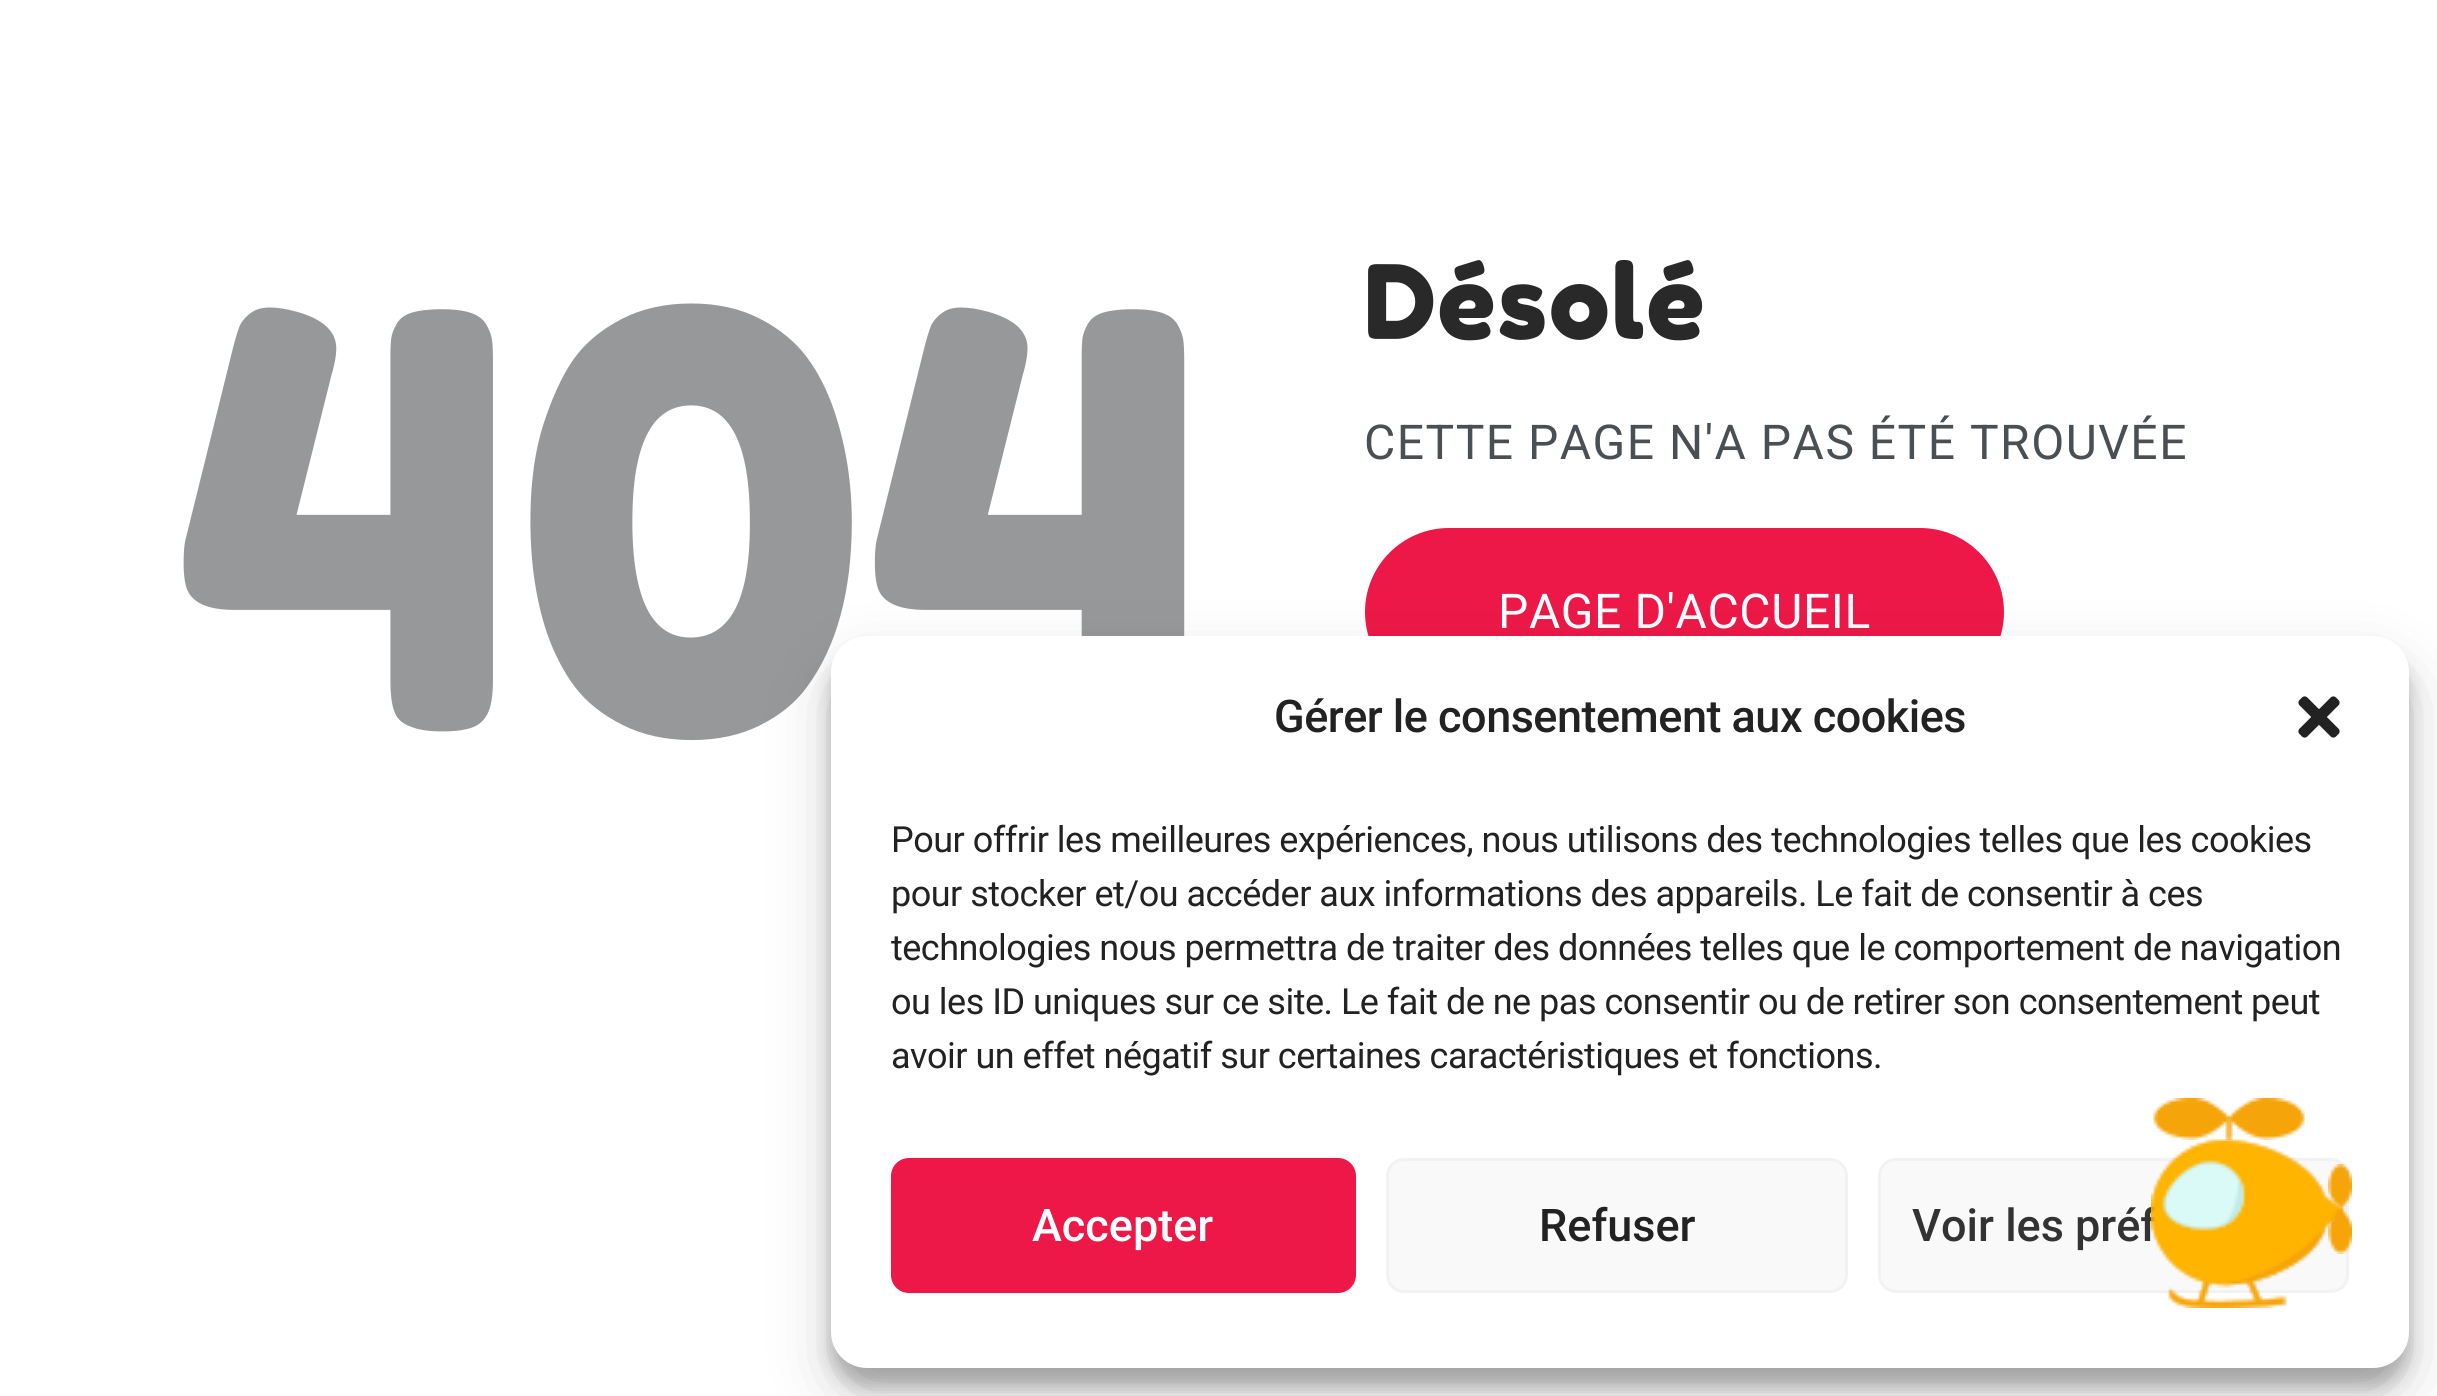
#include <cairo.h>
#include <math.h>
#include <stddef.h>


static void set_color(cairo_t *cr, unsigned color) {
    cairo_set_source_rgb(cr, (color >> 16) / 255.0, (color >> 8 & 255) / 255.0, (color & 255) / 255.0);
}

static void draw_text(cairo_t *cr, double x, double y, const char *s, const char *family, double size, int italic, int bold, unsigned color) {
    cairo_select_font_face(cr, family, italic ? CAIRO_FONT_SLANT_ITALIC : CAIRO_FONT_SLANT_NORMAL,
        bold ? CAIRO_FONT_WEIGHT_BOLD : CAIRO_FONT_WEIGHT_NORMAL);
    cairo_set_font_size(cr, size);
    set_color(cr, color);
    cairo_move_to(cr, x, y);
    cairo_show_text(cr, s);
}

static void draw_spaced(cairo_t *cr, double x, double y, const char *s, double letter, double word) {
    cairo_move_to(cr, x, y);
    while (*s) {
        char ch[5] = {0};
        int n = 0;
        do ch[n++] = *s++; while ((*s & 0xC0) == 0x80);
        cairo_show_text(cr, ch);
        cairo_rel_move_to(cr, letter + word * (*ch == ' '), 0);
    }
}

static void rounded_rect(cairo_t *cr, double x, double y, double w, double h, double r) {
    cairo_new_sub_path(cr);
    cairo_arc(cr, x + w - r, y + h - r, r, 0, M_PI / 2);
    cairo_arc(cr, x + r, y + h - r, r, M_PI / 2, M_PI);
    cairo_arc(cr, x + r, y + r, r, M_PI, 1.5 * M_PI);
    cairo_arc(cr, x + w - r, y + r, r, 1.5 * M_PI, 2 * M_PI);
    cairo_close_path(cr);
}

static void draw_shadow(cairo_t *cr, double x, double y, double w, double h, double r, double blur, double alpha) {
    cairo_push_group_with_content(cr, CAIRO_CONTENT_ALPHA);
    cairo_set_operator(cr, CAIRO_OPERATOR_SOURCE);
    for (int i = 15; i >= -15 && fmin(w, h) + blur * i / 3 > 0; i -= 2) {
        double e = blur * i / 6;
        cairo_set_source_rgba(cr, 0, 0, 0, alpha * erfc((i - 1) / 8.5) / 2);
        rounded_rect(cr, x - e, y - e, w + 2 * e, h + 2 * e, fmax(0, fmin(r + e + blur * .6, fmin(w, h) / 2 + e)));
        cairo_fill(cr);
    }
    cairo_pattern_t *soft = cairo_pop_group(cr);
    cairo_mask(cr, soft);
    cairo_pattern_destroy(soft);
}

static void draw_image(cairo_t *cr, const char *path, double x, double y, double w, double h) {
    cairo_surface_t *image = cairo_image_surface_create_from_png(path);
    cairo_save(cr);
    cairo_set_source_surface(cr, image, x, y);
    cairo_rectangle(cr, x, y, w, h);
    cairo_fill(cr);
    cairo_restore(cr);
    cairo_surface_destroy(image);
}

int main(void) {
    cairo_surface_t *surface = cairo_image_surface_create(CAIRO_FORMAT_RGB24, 2437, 1396);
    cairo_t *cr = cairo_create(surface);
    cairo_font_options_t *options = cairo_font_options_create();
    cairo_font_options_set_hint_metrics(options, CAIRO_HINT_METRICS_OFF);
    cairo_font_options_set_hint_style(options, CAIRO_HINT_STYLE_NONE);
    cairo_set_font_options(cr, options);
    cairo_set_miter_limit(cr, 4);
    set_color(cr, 0xFFFFFF);
    cairo_paint(cr);
    draw_text(cr, 175, 732, "404", "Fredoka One", 576, 0, 0, 0x969899);
    cairo_set_font_size(cr, 102);
    set_color(cr, 0x292929);
    draw_spaced(cr, 1364, 339, "Désolé", 1.5, 0);
    cairo_select_font_face(cr, "Roboto", CAIRO_FONT_SLANT_NORMAL, CAIRO_FONT_WEIGHT_NORMAL);
    cairo_set_font_size(cr, 48);
    set_color(cr, 0x4A4F53);
    draw_spaced(cr, 1364, 459, "CETTE PAGE N'A PAS ÉTÉ TROUVÉE", 1.5, 0);
    set_color(cr, 0xED1847);
    rounded_rect(cr, 1365, 528, 639, 168, 84);
    cairo_fill(cr);
    set_color(cr, 0xFFFFFF);
    draw_spaced(cr, 1498, 628, "PAGE D'ACCUEIL", 0.6, 0);
    set_color(cr, 0x000000);
    draw_shadow(cr, 831, 654, 1578, 732, 36, 9, 0.23);
    draw_shadow(cr, 831, 666, 1578, 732, 36, 30, 0.19);
    set_color(cr, 0xFFFFFF);
    rounded_rect(cr, 831, 636, 1578, 732, 36);
    cairo_fill(cr);
    cairo_select_font_face(cr, "Roboto Medium", CAIRO_FONT_SLANT_NORMAL, CAIRO_FONT_WEIGHT_NORMAL);
    cairo_set_font_size(cr, 45);
    set_color(cr, 0x222222);
    draw_spaced(cr, 1274, 732, "Gérer le consentement aux cookies", -0.5, 0);
    draw_image(cr, "assets/img1.png", 2298, 696, 42, 42);
    cairo_select_font_face(cr, "Roboto", CAIRO_FONT_SLANT_NORMAL, CAIRO_FONT_WEIGHT_NORMAL);
    cairo_set_font_size(cr, 36);
    draw_spaced(cr, 891, 852, "Pour offrir les meilleures expériences, nous utilisons des technologies telles que les cookies", -0.5, 0);
    draw_spaced(cr, 891, 906, "pour stocker et/ou accéder aux informations des appareils. Le fait de consentir à ces", -0.5, 0);
    draw_spaced(cr, 891, 960, "technologies nous permettra de traiter des données telles que le comportement de navigation", -0.5, 0);
    draw_spaced(cr, 891, 1014, "ou les ID uniques sur ce site. Le fait de ne pas consentir ou de retirer son consentement peut", -0.5, 0);
    draw_spaced(cr, 891, 1068, "avoir un effet négatif sur certaines caractéristiques et fonctions.", -0.5, 0);
    set_color(cr, 0xED1847);
    rounded_rect(cr, 892.5, 1159.5, 462, 132, 16.5);
    cairo_fill_preserve(cr);
    cairo_set_line_width(cr, 3);
    cairo_stroke(cr);
    draw_text(cr, 1032, 1241, "Accepter", "Roboto Medium", 45, 0, 0, 0xFFFFFF);
    set_color(cr, 0xF9F9F9);
    rounded_rect(cr, 1387.5, 1159.5, 459, 132, 16.5);
    cairo_fill_preserve(cr);
    set_color(cr, 0xF2F2F2);
    cairo_stroke(cr);
    draw_text(cr, 1539, 1241, "Refuser", "Roboto Medium", 45, 0, 0, 0x222222);
    set_color(cr, 0xF9F9F9);
    rounded_rect(cr, 1879.5, 1159.5, 468, 132, 16.5);
    cairo_fill_preserve(cr);
    set_color(cr, 0xF2F2F2);
    cairo_stroke(cr);
    draw_text(cr, 1912, 1241, "Voir les préf", "Roboto Medium", 45, 0, 0, 0x333333);
    draw_image(cr, "assets/img2.png", 2151, 1139, 193, 169);
    draw_image(cr, "assets/img3.png", 2153, 1098, 152, 42);
    draw_image(cr, "assets/img4.png", 2328, 1164, 24, 90);
    cairo_surface_write_to_png(surface, "output.png");
    cairo_font_options_destroy(options);
    cairo_destroy(cr);
    cairo_surface_destroy(surface);
    return 0;
}
